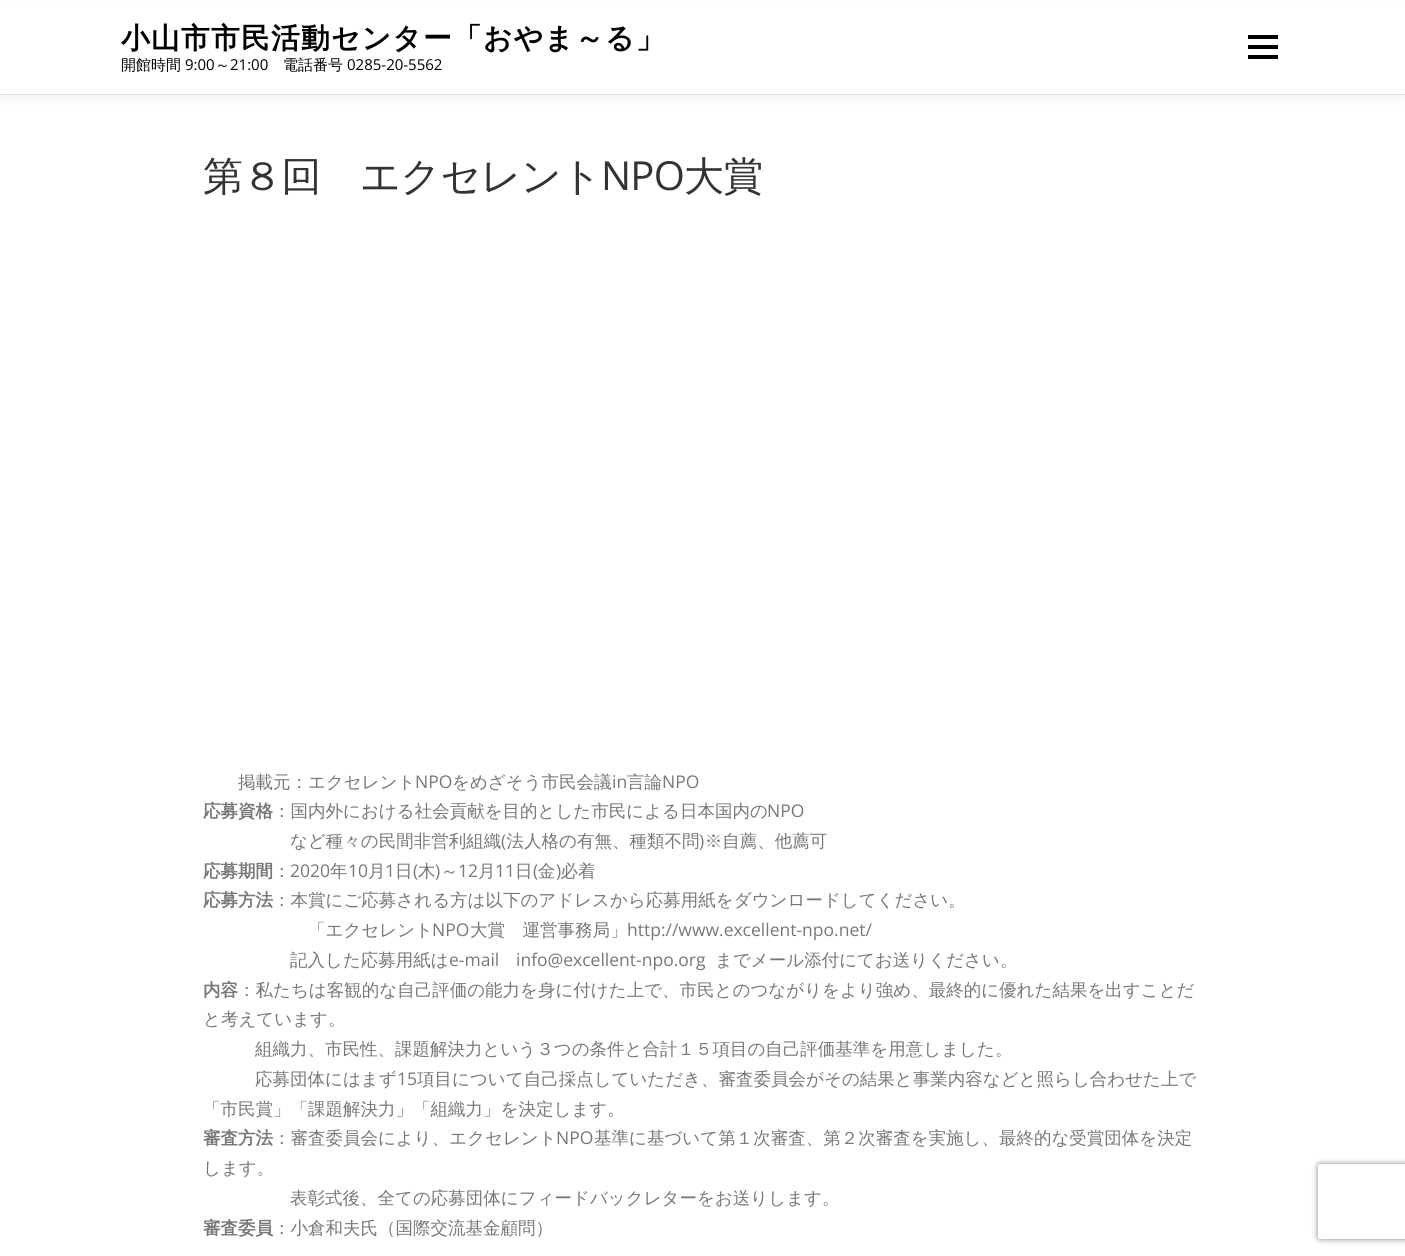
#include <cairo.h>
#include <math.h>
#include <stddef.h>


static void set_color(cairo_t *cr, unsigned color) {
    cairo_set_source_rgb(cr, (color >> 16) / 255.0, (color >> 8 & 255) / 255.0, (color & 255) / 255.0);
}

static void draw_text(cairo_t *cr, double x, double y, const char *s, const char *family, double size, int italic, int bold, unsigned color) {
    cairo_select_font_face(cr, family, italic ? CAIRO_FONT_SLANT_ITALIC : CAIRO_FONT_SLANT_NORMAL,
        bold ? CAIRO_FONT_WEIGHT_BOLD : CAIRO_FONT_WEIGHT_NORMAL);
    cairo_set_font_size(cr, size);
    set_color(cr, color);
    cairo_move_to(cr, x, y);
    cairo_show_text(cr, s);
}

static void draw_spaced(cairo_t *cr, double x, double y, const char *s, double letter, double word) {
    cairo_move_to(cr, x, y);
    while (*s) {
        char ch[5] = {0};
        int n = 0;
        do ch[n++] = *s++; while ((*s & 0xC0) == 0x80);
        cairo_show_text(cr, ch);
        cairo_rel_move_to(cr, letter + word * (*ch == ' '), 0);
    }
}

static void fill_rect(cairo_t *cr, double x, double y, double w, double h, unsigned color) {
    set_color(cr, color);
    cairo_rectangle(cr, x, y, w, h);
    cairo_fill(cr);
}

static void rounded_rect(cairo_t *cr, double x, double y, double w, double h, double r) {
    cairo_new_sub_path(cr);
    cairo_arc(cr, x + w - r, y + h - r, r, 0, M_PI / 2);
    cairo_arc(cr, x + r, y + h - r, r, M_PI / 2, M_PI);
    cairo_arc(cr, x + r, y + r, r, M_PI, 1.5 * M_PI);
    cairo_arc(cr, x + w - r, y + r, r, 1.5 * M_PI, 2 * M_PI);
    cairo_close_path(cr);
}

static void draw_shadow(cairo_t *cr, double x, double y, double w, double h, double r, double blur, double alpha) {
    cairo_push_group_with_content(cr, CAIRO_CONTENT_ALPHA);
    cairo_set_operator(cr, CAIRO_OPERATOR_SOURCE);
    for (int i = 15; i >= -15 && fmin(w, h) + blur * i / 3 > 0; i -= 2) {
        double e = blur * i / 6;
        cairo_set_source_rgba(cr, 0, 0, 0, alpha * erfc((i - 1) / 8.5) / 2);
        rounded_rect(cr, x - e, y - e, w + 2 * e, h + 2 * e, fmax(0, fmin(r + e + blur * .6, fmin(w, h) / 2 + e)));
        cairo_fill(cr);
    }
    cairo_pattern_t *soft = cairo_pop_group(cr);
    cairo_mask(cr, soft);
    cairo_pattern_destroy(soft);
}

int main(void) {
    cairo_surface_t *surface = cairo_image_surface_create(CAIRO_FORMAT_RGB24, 1405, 1256);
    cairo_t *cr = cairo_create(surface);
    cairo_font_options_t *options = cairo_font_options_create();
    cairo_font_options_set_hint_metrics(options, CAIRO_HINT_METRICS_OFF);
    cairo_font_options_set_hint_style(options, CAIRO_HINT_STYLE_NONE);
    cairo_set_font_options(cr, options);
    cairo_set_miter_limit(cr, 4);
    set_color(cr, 0xFFFFFF);
    cairo_paint(cr);
    fill_rect(cr, 0, 94, 1405, 1, 0xE9E9E9);
    set_color(cr, 0x323232);
    draw_shadow(cr, 0, 6, 1405, 94, 0, 6, 0.06);
    fill_rect(cr, 0, 1, 1405, 93, 0xFFFFFF);
    cairo_select_font_face(cr, "WenQuanYi Zen Hei", CAIRO_FONT_SLANT_NORMAL, CAIRO_FONT_WEIGHT_BOLD);
    cairo_set_font_size(cr, 28.75);
    set_color(cr, 0x000000);
    draw_spaced(cr, 121, 48, "小山市市民活動センター「おやま～る」", 1.25, 0);
    draw_text(cr, 121, 70, "開館時間", "WenQuanYi Zen Hei Medium", 15, 0, 0, 0x000000);
    draw_text(cr, 185, 70, "9:00", "Open Sans", 15, 0, 0, 0x000000);
    draw_text(cr, 215, 70, "～", "WenQuanYi Zen Hei Medium", 15, 0, 0, 0x000000);
    draw_text(cr, 230, 70, "21:00", "Open Sans", 15, 0, 0, 0x000000);
    draw_text(cr, 283, 70, "電話番号", "WenQuanYi Zen Hei Medium", 15, 0, 0, 0x000000);
    draw_text(cr, 347, 70, "0285-20-5562", "Open Sans", 15, 0, 0, 0x000000);
    fill_rect(cr, 1248, 45, 30, 4, 0x000000);
    fill_rect(cr, 1248, 35, 30, 4, 0x000000);
    fill_rect(cr, 1248, 55, 30, 4, 0x000000);
    cairo_select_font_face(cr, "WenQuanYi Zen Hei Medium", CAIRO_FONT_SLANT_NORMAL, CAIRO_FONT_WEIGHT_NORMAL);
    cairo_set_font_size(cr, 40);
    set_color(cr, 0x333333);
    draw_spaced(cr, 203, 190, "第８回　エクセレント", -0.75, 0);
    cairo_select_font_face(cr, "Open Sans", CAIRO_FONT_SLANT_NORMAL, CAIRO_FONT_WEIGHT_NORMAL);
    draw_spaced(cr, 601, 190, "NPO", -0.75, 0);
    cairo_select_font_face(cr, "WenQuanYi Zen Hei Medium", CAIRO_FONT_SLANT_NORMAL, CAIRO_FONT_WEIGHT_NORMAL);
    draw_spaced(cr, 684, 190, "大賞", -0.75, 0);
    draw_text(cr, 238, 788, "掲載元：エクセレント", "WenQuanYi Zen Hei Medium", 17.5, 0, 0, 0x777777);
    draw_text(cr, 415, 788, "NPO", "Open Sans", 17.5, 0, 0, 0x777777);
    draw_text(cr, 452, 788, "をめざそう市民会議", "WenQuanYi Zen Hei Medium", 17.5, 0, 0, 0x777777);
    draw_text(cr, 612, 788, "in", "Open Sans", 17.5, 0, 0, 0x777777);
    draw_text(cr, 627, 788, "言論", "WenQuanYi Zen Hei Medium", 17.5, 0, 0, 0x777777);
    draw_text(cr, 662, 788, "NPO", "Open Sans", 17.5, 0, 0, 0x777777);
    draw_text(cr, 203, 817, "応募資格", "WenQuanYi Zen Hei", 17.5, 0, 1, 0x777777);
    draw_text(cr, 273, 817, "：国内外における社会貢献を目的とした市民による日本国内の", "WenQuanYi Zen Hei Medium", 17.5, 0, 0, 0x777777);
    draw_text(cr, 767, 817, "NPO", "Open Sans", 17.5, 0, 0, 0x777777);
    draw_text(cr, 290, 847, "など種々の民間非営利組織 法人格の有無、種類不問 ※自薦、他薦可", "WenQuanYi Zen Hei Medium", 17.5, 0, 0, 0x777777);
    draw_text(cr, 501, 847, "(", "Open Sans", 17.5, 0, 0, 0x777777);
    draw_text(cr, 699, 847, ")", "Open Sans", 17.5, 0, 0, 0x777777);
    draw_text(cr, 203, 877, "応募期間", "WenQuanYi Zen Hei", 17.5, 0, 1, 0x777777);
    draw_text(cr, 290, 877, "2020", "Open Sans", 17.5, 0, 0, 0x777777);
    draw_text(cr, 330, 877, "年", "WenQuanYi Zen Hei Medium", 17.5, 0, 0, 0x777777);
    draw_text(cr, 348, 877, "10", "Open Sans", 17.5, 0, 0, 0x777777);
    draw_text(cr, 368, 877, "月", "WenQuanYi Zen Hei Medium", 17.5, 0, 0, 0x777777);
    draw_text(cr, 385, 877, "1", "Open Sans", 17.5, 0, 0, 0x777777);
    draw_text(cr, 395, 877, "日", "WenQuanYi Zen Hei Medium", 17.5, 0, 0, 0x777777);
    draw_text(cr, 413, 877, "(", "Open Sans", 17.5, 0, 0, 0x777777);
    draw_text(cr, 418, 877, "木 ～", "WenQuanYi Zen Hei Medium", 17.5, 0, 0, 0x777777);
    draw_text(cr, 478, 877, "月", "WenQuanYi Zen Hei Medium", 17.5, 0, 0, 0x777777);
    draw_text(cr, 515, 877, "日 金 必着", "WenQuanYi Zen Hei Medium", 17.5, 0, 0, 0x777777);
    draw_text(cr, 273, 877, "：", "WenQuanYi Zen Hei Medium", 17.5, 0, 0, 0x777777);
    draw_text(cr, 435, 877, ")", "Open Sans", 17.5, 0, 0, 0x777777);
    draw_text(cr, 458, 877, "12", "Open Sans", 17.5, 0, 0, 0x777777);
    draw_text(cr, 495, 877, "11", "Open Sans", 17.5, 0, 0, 0x777777);
    draw_text(cr, 533, 877, "(", "Open Sans", 17.5, 0, 0, 0x777777);
    draw_text(cr, 556, 877, ")", "Open Sans", 17.5, 0, 0, 0x777777);
    draw_text(cr, 203, 906, "応募方法", "WenQuanYi Zen Hei", 17.5, 0, 1, 0x777777);
    draw_text(cr, 273, 906, "：本賞にご応募される方は以下のアドレスから応募用紙をダウンロードしてください。", "WenQuanYi Zen Hei Medium", 17.5, 0, 0, 0x777777);
    draw_text(cr, 308, 936, "「エクセレント", "WenQuanYi Zen Hei Medium", 17.5, 0, 0, 0x777777);
    draw_text(cr, 432, 936, "NPO", "Open Sans", 17.5, 0, 0, 0x777777);
    draw_text(cr, 470, 936, "大賞　運営事務局」", "WenQuanYi Zen Hei Medium", 17.5, 0, 0, 0x777777);
    draw_text(cr, 627, 936, "http://www.excellent-npo.net/", "Open Sans", 17.5, 0, 0, 0x777777);
    draw_text(cr, 290, 966, "記入した応募用紙は", "WenQuanYi Zen Hei Medium", 17.5, 0, 0, 0x777777);
    draw_text(cr, 449, 966, "e-mail", "Open Sans", 17.5, 0, 0, 0x777777);
    draw_text(cr, 516, 966, "info@excellent-npo.org", "Open Sans", 17.5, 0, 0, 0x777777);
    draw_text(cr, 715, 966, "までメール添付にてお送りください。", "WenQuanYi Zen Hei Medium", 17.5, 0, 0, 0x777777);
    draw_text(cr, 203, 996, "内容", "WenQuanYi Zen Hei", 17.5, 0, 1, 0x777777);
    draw_text(cr, 238, 996, "：私たちは客観的な自己評価の能力を身に付けた上で、市民とのつながりをより強め、最終的に優れた結果を出すことだ", "WenQuanYi Zen Hei Medium", 17.5, 0, 0, 0x777777);
    draw_text(cr, 203, 1025, "と考えています。", "WenQuanYi Zen Hei Medium", 17.5, 0, 0, 0x777777);
    draw_text(cr, 255, 1055, "組織力、市民性、課題解決力という３つの条件と合計１５項目の自己評価基準を用意しました。", "WenQuanYi Zen Hei Medium", 17.5, 0, 0, 0x777777);
    draw_text(cr, 255, 1085, "応募団体にはまず", "WenQuanYi Zen Hei Medium", 17.5, 0, 0, 0x777777);
    draw_text(cr, 397, 1085, "15", "Open Sans", 17.5, 0, 0, 0x777777);
    draw_text(cr, 417, 1085, "項目について自己採点していただき、審査委員会がその結果と事業内容などと照らし合わせた上で", "WenQuanYi Zen Hei Medium", 17.5, 0, 0, 0x777777);
    draw_text(cr, 203, 1115, "「市民賞」「課題解決力」「組織力」を決定します。", "WenQuanYi Zen Hei Medium", 17.5, 0, 0, 0x777777);
    draw_text(cr, 203, 1144, "審査方法", "WenQuanYi Zen Hei", 17.5, 0, 1, 0x777777);
    draw_text(cr, 273, 1144, "：審査委員会により、エクセレント", "WenQuanYi Zen Hei Medium", 17.5, 0, 0, 0x777777);
    draw_text(cr, 556, 1144, "NPO", "Open Sans", 17.5, 0, 0, 0x777777);
    draw_text(cr, 594, 1144, "基準に基づいて第１次審査、第２次審査を実施し、最終的な受賞団体を決定", "WenQuanYi Zen Hei Medium", 17.5, 0, 0, 0x777777);
    draw_text(cr, 203, 1174, "します。", "WenQuanYi Zen Hei Medium", 17.5, 0, 0, 0x777777);
    draw_text(cr, 290, 1204, "表彰式後、全ての応募団体にフィードバックレターをお送りします。", "WenQuanYi Zen Hei Medium", 17.5, 0, 0, 0x777777);
    draw_text(cr, 203, 1234, "審査委員", "WenQuanYi Zen Hei", 17.5, 0, 1, 0x777777);
    draw_text(cr, 273, 1234, "：小倉和夫氏（国際交流基金顧問）", "WenQuanYi Zen Hei Medium", 17.5, 0, 0, 0x777777);
    cairo_save(cr);
    cairo_set_fill_rule(cr, CAIRO_FILL_RULE_EVEN_ODD);
    cairo_new_path(cr);
    cairo_move_to(cr, 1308, 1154);
    cairo_line_to(cr, 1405, 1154);
    cairo_line_to(cr, 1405, 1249);
    cairo_line_to(cr, 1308, 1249);
    cairo_close_path(cr);
    cairo_move_to(cr, 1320.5, 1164);
    cairo_line_to(cr, 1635.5, 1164);
    cairo_curve_to(cr, 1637, 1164, 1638, 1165, 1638, 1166.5);
    cairo_line_to(cr, 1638, 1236.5);
    cairo_curve_to(cr, 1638, 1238, 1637, 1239, 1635.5, 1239);
    cairo_line_to(cr, 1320.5, 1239);
    cairo_curve_to(cr, 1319, 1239, 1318, 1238, 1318, 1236.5);
    cairo_line_to(cr, 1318, 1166.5);
    cairo_curve_to(cr, 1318, 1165, 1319, 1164, 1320.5, 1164);
    cairo_close_path(cr);
    cairo_clip(cr);
    set_color(cr, 0x808080);
    draw_shadow(cr, 1318, 1164, 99, 75, 2.5, 3, 1);
    cairo_restore(cr);
    cairo_surface_write_to_png(surface, "output.png");
    cairo_font_options_destroy(options);
    cairo_destroy(cr);
    cairo_surface_destroy(surface);
    return 0;
}
